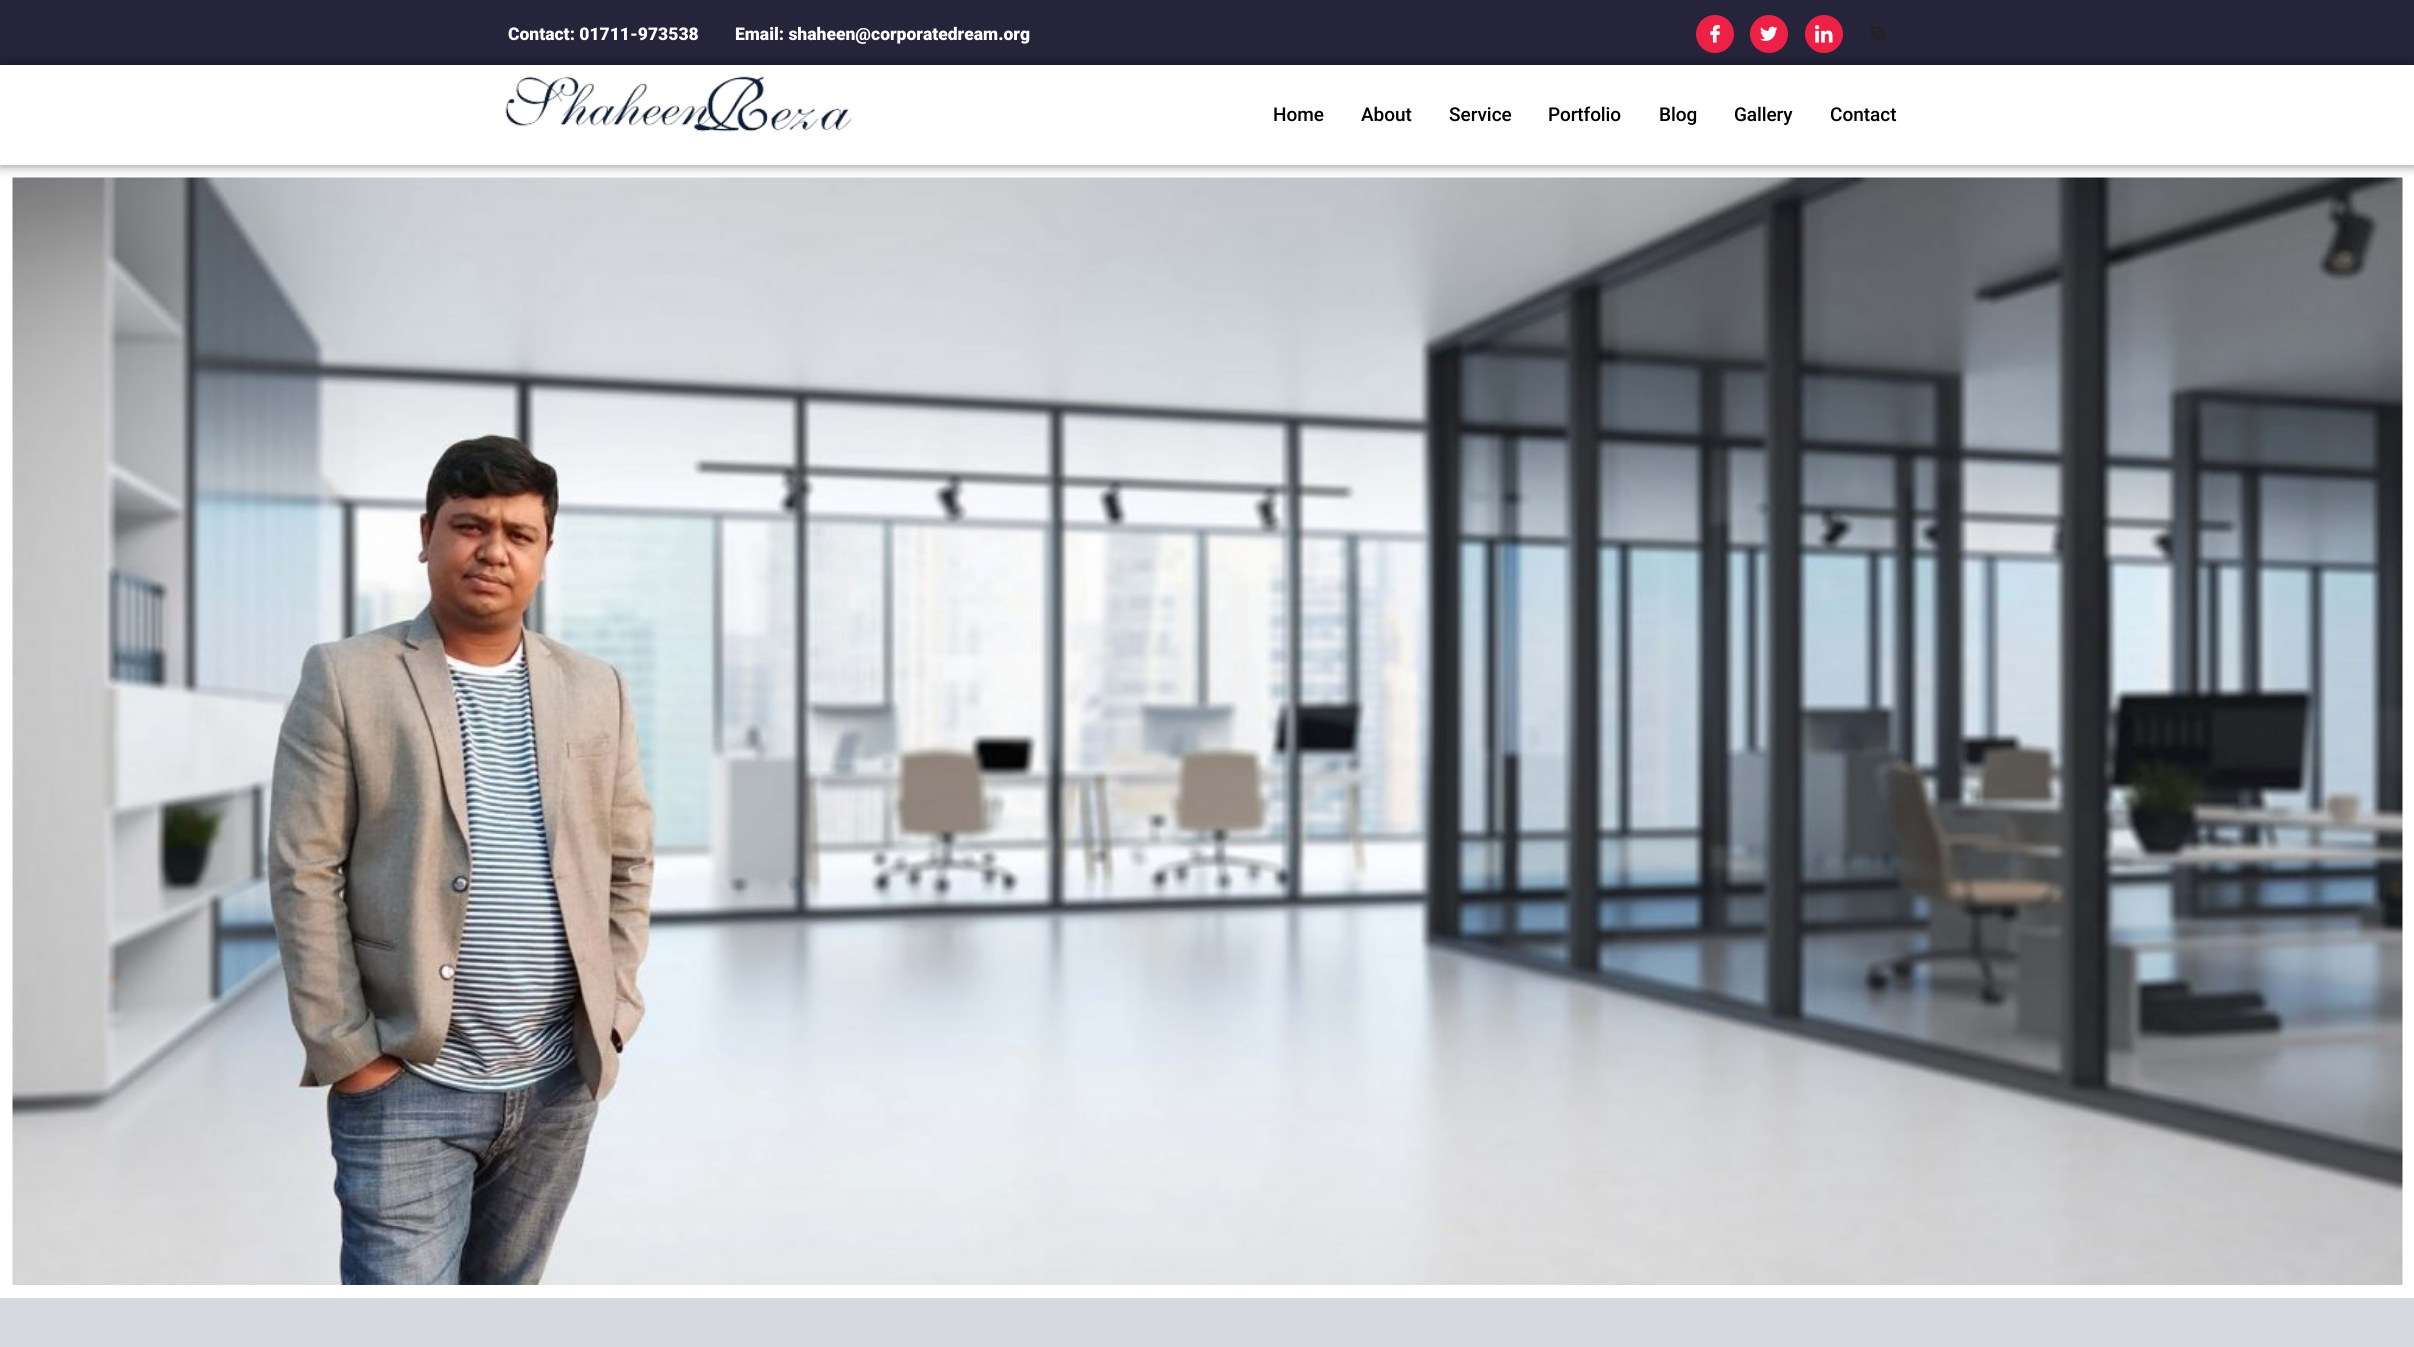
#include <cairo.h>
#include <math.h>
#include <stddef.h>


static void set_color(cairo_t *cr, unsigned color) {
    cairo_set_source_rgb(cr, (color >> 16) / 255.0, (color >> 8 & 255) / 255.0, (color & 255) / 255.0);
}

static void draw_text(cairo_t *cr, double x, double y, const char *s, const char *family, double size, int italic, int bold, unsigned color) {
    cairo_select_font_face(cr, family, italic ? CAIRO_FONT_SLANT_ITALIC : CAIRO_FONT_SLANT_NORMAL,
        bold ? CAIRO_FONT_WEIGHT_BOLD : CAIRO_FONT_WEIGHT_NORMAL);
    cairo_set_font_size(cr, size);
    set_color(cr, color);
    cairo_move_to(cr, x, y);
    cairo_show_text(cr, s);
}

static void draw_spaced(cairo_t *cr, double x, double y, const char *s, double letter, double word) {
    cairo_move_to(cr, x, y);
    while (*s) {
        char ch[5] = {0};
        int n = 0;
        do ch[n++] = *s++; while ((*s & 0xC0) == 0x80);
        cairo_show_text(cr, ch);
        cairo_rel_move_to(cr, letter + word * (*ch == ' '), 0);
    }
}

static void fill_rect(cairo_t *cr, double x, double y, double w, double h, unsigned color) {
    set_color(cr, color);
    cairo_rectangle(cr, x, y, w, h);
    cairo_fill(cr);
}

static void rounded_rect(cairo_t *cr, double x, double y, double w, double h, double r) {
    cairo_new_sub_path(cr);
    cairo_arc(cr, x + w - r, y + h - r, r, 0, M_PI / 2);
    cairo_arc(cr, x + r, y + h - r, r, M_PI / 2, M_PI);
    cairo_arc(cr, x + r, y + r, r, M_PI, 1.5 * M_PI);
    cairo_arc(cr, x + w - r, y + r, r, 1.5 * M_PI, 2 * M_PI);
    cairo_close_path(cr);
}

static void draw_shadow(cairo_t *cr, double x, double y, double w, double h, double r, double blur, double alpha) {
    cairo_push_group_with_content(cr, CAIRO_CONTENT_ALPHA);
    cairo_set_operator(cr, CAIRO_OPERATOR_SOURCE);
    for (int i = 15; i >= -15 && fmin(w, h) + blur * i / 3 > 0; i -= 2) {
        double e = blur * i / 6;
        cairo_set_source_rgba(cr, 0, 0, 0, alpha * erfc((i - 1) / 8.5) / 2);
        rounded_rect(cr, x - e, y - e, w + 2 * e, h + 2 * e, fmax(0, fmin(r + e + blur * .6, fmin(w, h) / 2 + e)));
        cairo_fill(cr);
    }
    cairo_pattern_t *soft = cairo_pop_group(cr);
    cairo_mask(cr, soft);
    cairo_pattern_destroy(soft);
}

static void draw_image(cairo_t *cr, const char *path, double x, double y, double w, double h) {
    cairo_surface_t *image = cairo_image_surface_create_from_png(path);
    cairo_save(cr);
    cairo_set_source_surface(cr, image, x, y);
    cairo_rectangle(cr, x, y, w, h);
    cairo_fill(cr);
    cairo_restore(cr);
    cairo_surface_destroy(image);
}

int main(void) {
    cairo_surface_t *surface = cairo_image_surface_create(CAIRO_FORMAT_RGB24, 2414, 1347);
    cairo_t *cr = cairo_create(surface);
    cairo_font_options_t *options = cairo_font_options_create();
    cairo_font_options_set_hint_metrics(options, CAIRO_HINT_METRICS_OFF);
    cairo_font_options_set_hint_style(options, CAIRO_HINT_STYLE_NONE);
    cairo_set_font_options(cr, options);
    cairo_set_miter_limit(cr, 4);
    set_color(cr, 0xFFFFFF);
    cairo_paint(cr);
    fill_rect(cr, 0, 0, 2414, 65, 0x26243B);
    draw_text(cr, 508, 40, "Contact: 01711-973538", "Roboto Black", 17.5, 0, 0, 0xFFFFFF);
    draw_text(cr, 735, 40, "Email: shaheen@corporatedream.org", "Roboto Black", 17.5, 0, 0, 0xFFFFFF);
    set_color(cr, 0xED2046);
    cairo_new_path(cr);
    cairo_arc(cr, 1715, 34, 19, 0, 2 * M_PI);
    cairo_fill(cr);
    draw_image(cr, "assets/img1.png", 1710, 25, 10, 18);
    cairo_arc(cr, 1769, 34, 19, 0, 2 * M_PI);
    cairo_fill(cr);
    draw_image(cr, "assets/img2.png", 1760, 26, 18, 15);
    cairo_arc(cr, 1824, 34, 19, 0, 2 * M_PI);
    cairo_fill(cr);
    draw_image(cr, "assets/img3.png", 1815, 25, 18, 18);
    draw_image(cr, "assets/img4.png", 1870, 26, 16, 15);
    draw_image(cr, "assets/img6.png", 12, 177, 2391, 1108);
    set_color(cr, 0x000000);
    draw_shadow(cr, 0, 65, 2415, 100, 0, 6, 0.5);
    fill_rect(cr, 0, 65, 2414, 100, 0xFFFFFF);
    draw_image(cr, "assets/img5.png", 505, 76, 347, 56);
    draw_text(cr, 1273, 121, "Home", "Roboto Medium", 19, 0, 0, 0x000000);
    draw_text(cr, 1361, 121, "About", "Roboto Medium", 19, 0, 0, 0x000000);
    draw_text(cr, 1449, 121, "Service", "Roboto Medium", 19, 0, 0, 0x000000);
    draw_spaced(cr, 1548, 121, "Portfolio", -0.1, 0);
    draw_text(cr, 1659, 121, "Blog", "Roboto Medium", 19, 0, 0, 0x000000);
    draw_spaced(cr, 1734, 121, "Gallery", -0.1, 0);
    draw_text(cr, 1830, 121, "Contact", "Roboto Medium", 19, 0, 0, 0x000000);
    fill_rect(cr, 0, 1298, 2414, 49, 0xD6DADE);
    cairo_surface_write_to_png(surface, "output.png");
    cairo_font_options_destroy(options);
    cairo_destroy(cr);
    cairo_surface_destroy(surface);
    return 0;
}
